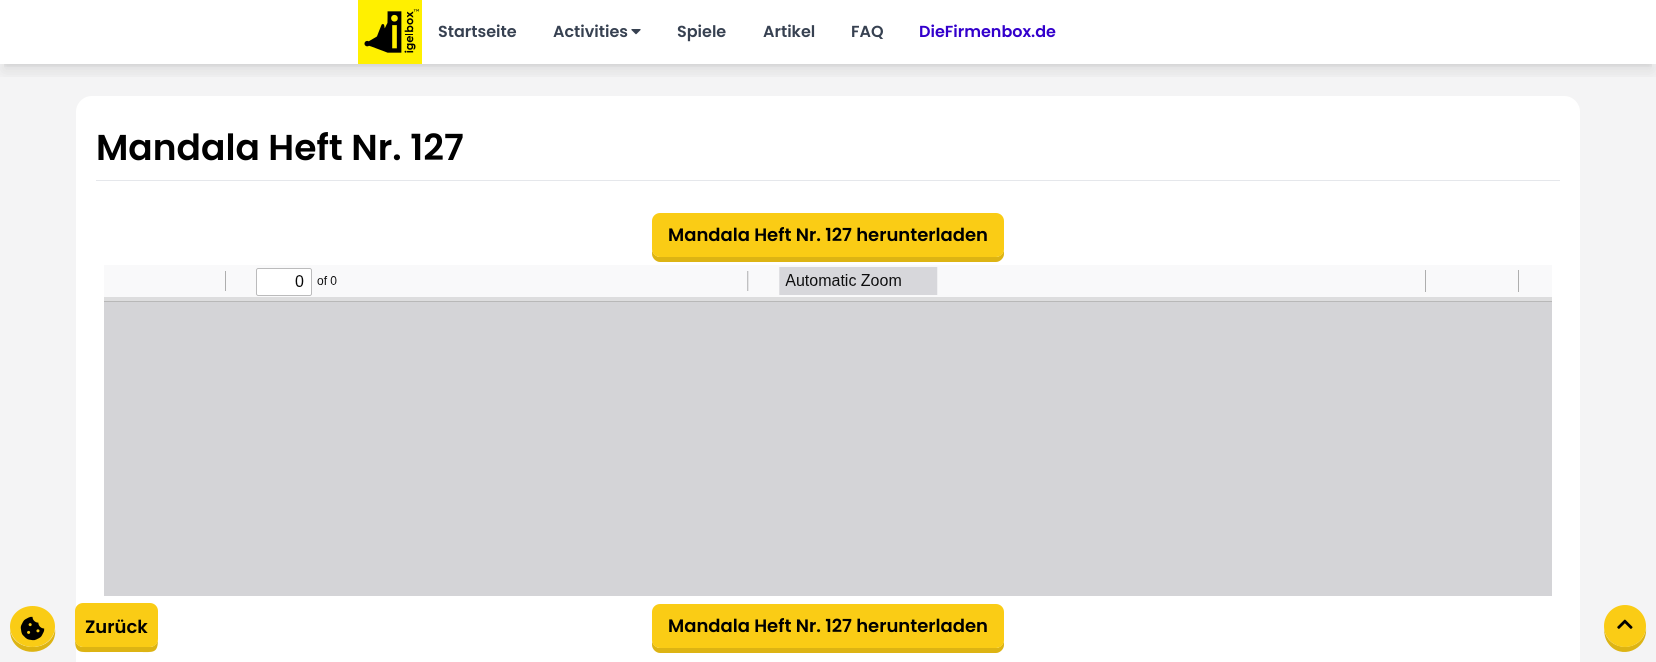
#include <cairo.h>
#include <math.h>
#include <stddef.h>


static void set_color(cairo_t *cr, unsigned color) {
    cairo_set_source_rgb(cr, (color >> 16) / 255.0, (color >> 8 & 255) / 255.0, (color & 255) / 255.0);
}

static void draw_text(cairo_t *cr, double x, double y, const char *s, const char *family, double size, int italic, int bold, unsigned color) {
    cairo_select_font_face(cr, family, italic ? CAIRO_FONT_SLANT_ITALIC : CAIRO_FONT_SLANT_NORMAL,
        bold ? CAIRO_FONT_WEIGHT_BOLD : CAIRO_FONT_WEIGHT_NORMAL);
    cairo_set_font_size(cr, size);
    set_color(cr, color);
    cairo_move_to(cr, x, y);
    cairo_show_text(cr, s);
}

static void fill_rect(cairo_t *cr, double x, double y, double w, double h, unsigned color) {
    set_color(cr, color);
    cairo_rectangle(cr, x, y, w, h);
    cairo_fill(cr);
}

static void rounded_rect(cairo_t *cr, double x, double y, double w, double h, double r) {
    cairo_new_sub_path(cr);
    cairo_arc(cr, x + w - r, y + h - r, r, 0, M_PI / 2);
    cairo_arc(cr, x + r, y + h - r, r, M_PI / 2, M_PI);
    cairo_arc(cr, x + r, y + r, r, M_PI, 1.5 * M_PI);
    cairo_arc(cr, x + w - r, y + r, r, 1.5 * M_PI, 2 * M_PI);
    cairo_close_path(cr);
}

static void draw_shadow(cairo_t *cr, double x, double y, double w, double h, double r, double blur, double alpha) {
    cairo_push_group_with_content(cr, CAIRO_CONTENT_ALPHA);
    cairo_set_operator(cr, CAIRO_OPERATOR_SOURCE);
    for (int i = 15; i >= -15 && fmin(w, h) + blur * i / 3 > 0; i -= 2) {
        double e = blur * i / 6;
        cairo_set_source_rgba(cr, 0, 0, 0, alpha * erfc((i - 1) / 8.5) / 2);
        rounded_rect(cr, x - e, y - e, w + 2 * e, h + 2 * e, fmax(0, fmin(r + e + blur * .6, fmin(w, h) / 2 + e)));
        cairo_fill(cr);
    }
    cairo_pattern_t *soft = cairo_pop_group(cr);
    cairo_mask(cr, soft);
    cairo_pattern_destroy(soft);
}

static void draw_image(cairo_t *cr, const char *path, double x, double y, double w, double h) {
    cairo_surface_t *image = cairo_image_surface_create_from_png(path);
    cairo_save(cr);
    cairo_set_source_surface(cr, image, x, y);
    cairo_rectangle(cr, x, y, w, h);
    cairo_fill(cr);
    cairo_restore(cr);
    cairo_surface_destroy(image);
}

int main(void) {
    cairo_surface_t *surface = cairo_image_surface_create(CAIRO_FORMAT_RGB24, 1656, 662);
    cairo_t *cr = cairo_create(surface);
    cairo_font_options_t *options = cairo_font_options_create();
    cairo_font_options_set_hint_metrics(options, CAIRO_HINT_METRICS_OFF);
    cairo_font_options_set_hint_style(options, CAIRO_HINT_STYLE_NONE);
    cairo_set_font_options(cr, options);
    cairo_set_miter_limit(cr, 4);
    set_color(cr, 0xFFFFFF);
    cairo_paint(cr);
    fill_rect(cr, 0, 64, 1656, 598, 0xF4F4F5);
    cairo_save(cr);
    cairo_rectangle(cr, 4, 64, 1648, 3);
    cairo_clip(cr);
    set_color(cr, 0x000000);
    draw_shadow(cr, 4, 8, 1648, 56, 0, 3, 0.1);
    cairo_restore(cr);
    cairo_save(cr);
    cairo_rectangle(cr, 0, 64, 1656, 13);
    cairo_clip(cr);
    set_color(cr, 0x000000);
    draw_shadow(cr, 3, 13, 1650, 58, 0, 7.5, 0.1);
    cairo_restore(cr);
    draw_image(cr, "assets/img1.png", 358, 0, 64, 64);
    draw_text(cr, 438, 37, "Startseite", "Poppins SemiBold", 16, 0, 0, 0x374151);
    draw_text(cr, 553, 37, "Activities", "Poppins SemiBold", 16, 0, 0, 0x374151);
    draw_image(cr, "assets/img2.png", 631, 29, 10, 6);
    draw_text(cr, 677, 37, "Spiele", "Poppins SemiBold", 16, 0, 0, 0x374151);
    draw_text(cr, 763, 37, "Artikel", "Poppins SemiBold", 16, 0, 0, 0x374151);
    draw_text(cr, 851, 37, "FAQ", "Poppins SemiBold", 16, 0, 0, 0x374151);
    draw_text(cr, 919, 37, "DieFirmenbox.de", "Poppins SemiBold", 16, 0, 0, 0x3300CC);
    set_color(cr, 0xDDB413);
    cairo_new_path(cr);
    cairo_move_to(cr, 10, 629);
    cairo_curve_to(cr, 10, 634, 11, 639, 14, 643);
    cairo_curve_to(cr, 26, 660, 58, 651, 55, 629);
    cairo_curve_to(cr, 52, 653, 13, 653, 10, 629);
    cairo_close_path(cr);
    cairo_fill(cr);
    set_color(cr, 0xFACC15);
    cairo_new_path(cr);
    cairo_move_to(cr, 32.5, 606);
    cairo_curve_to(cr, 45, 606, 55, 615, 55, 626.5);
    cairo_curve_to(cr, 55, 638, 45, 647, 32.5, 647);
    cairo_curve_to(cr, 20, 647, 10, 638, 10, 626.5);
    cairo_curve_to(cr, 10, 615, 20, 606, 32.5, 606);
    cairo_close_path(cr);
    cairo_fill(cr);
    draw_image(cr, "assets/img3.png", 20, 616, 25, 25);
    set_color(cr, 0xFFFFFF);
    rounded_rect(cr, 76, 96, 1504, 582, 16);
    cairo_fill(cr);
    fill_rect(cr, 96, 180, 1464, 1, 0xE5E7EB);
    draw_text(cr, 96, 160, "Mandala Heft Nr. 127", "Poppins SemiBold", 36, 0, 0, 0x000000);
    set_color(cr, 0xDDB413);
    cairo_new_path(cr);
    cairo_move_to(cr, 652, 249);
    cairo_line_to(cr, 652, 254);
    cairo_curve_to(cr, 652, 258, 656, 262, 660, 262);
    cairo_line_to(cr, 996, 262);
    cairo_curve_to(cr, 1000, 262, 1004, 258, 1004, 254);
    cairo_line_to(cr, 1004, 249);
    cairo_curve_to(cr, 1004, 253, 1000, 257, 996, 257);
    cairo_line_to(cr, 660, 257);
    cairo_curve_to(cr, 656, 257, 652, 253, 652, 249);
    cairo_close_path(cr);
    cairo_fill(cr);
    set_color(cr, 0xFACC15);
    rounded_rect(cr, 652, 213, 352, 44, 8);
    cairo_fill(cr);
    draw_text(cr, 668, 241, "Mandala Heft Nr. 127 herunterladen", "Poppins SemiBold", 18, 0, 0, 0x000000);
    draw_image(cr, "assets/img4.png", 104, 265, 1448, 331);
    set_color(cr, 0xDDB413);
    cairo_new_path(cr);
    cairo_move_to(cr, 652, 640);
    cairo_line_to(cr, 652, 645);
    cairo_curve_to(cr, 652, 649, 656, 653, 660, 653);
    cairo_line_to(cr, 996, 653);
    cairo_curve_to(cr, 1000, 653, 1004, 649, 1004, 645);
    cairo_line_to(cr, 1004, 640);
    cairo_curve_to(cr, 1004, 644, 1000, 648, 996, 648);
    cairo_line_to(cr, 660, 648);
    cairo_curve_to(cr, 656, 648, 652, 644, 652, 640);
    cairo_close_path(cr);
    cairo_fill(cr);
    set_color(cr, 0xFACC15);
    rounded_rect(cr, 652, 604, 352, 44, 8);
    cairo_fill(cr);
    draw_text(cr, 668, 632, "Mandala Heft Nr. 127 herunterladen", "Poppins SemiBold", 18, 0, 0, 0x000000);
    set_color(cr, 0xDDB413);
    cairo_new_path(cr);
    cairo_move_to(cr, 1646, 628);
    cairo_curve_to(cr, 1643, 653, 1607, 653, 1604, 628);
    cairo_curve_to(cr, 1604, 633, 1605, 639, 1608, 643);
    cairo_curve_to(cr, 1620, 661, 1648, 650, 1646, 628);
    cairo_close_path(cr);
    cairo_fill(cr);
    set_color(cr, 0xFACC15);
    cairo_arc(cr, 1625, 626, 21, 0, 2 * M_PI);
    cairo_fill(cr);
    draw_image(cr, "assets/img5.png", 1617, 619, 16, 10);
    set_color(cr, 0xDDB413);
    cairo_new_path(cr);
    cairo_move_to(cr, 75, 639);
    cairo_curve_to(cr, 75, 654, 80, 652, 94, 652);
    cairo_line_to(cr, 139, 652);
    cairo_curve_to(cr, 153, 652, 158, 654, 158, 639);
    cairo_curve_to(cr, 158, 643, 154, 647, 150, 647);
    cairo_line_to(cr, 83, 647);
    cairo_curve_to(cr, 79, 647, 75, 643, 75, 639);
    cairo_close_path(cr);
    cairo_fill(cr);
    set_color(cr, 0xFACC15);
    rounded_rect(cr, 75, 603, 83, 44, 8);
    cairo_fill(cr);
    draw_text(cr, 85, 633, "Zurück", "Poppins SemiBold", 18, 0, 0, 0x000000);
    cairo_surface_write_to_png(surface, "output.png");
    cairo_font_options_destroy(options);
    cairo_destroy(cr);
    cairo_surface_destroy(surface);
    return 0;
}
